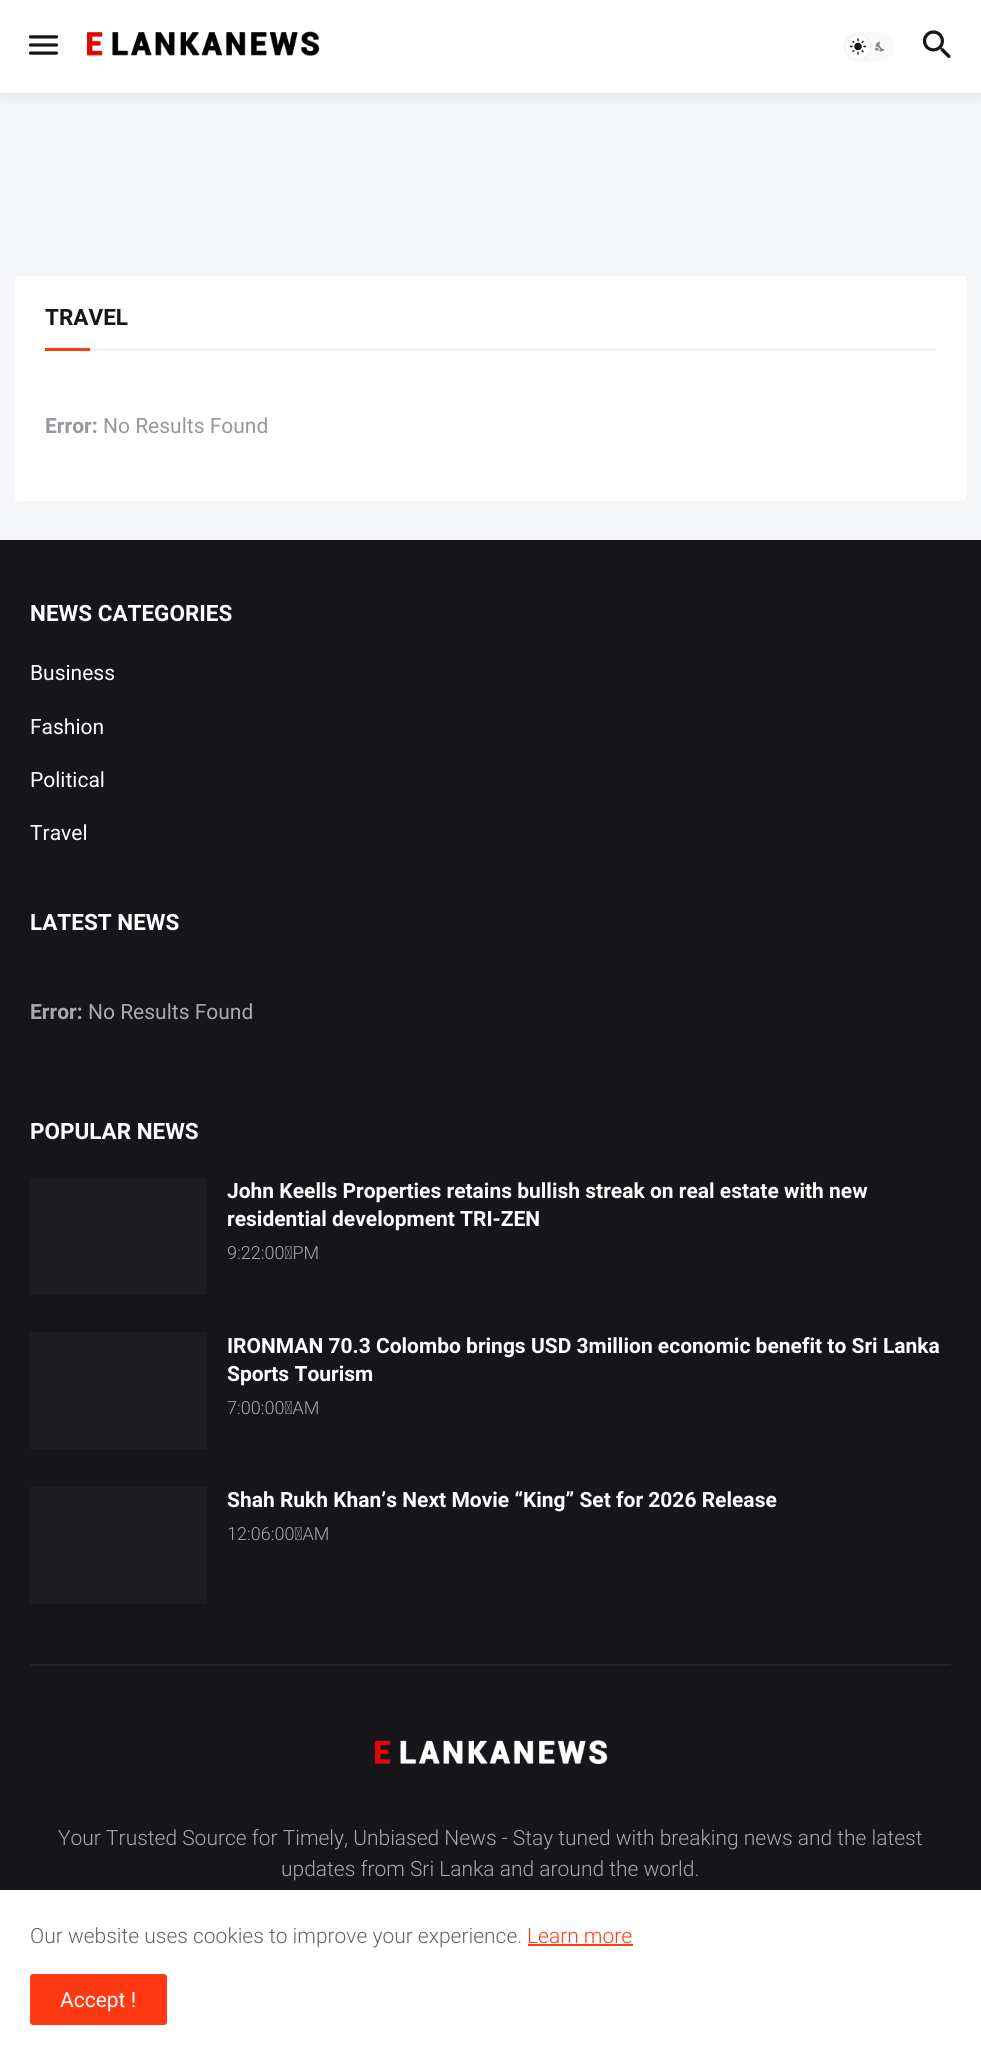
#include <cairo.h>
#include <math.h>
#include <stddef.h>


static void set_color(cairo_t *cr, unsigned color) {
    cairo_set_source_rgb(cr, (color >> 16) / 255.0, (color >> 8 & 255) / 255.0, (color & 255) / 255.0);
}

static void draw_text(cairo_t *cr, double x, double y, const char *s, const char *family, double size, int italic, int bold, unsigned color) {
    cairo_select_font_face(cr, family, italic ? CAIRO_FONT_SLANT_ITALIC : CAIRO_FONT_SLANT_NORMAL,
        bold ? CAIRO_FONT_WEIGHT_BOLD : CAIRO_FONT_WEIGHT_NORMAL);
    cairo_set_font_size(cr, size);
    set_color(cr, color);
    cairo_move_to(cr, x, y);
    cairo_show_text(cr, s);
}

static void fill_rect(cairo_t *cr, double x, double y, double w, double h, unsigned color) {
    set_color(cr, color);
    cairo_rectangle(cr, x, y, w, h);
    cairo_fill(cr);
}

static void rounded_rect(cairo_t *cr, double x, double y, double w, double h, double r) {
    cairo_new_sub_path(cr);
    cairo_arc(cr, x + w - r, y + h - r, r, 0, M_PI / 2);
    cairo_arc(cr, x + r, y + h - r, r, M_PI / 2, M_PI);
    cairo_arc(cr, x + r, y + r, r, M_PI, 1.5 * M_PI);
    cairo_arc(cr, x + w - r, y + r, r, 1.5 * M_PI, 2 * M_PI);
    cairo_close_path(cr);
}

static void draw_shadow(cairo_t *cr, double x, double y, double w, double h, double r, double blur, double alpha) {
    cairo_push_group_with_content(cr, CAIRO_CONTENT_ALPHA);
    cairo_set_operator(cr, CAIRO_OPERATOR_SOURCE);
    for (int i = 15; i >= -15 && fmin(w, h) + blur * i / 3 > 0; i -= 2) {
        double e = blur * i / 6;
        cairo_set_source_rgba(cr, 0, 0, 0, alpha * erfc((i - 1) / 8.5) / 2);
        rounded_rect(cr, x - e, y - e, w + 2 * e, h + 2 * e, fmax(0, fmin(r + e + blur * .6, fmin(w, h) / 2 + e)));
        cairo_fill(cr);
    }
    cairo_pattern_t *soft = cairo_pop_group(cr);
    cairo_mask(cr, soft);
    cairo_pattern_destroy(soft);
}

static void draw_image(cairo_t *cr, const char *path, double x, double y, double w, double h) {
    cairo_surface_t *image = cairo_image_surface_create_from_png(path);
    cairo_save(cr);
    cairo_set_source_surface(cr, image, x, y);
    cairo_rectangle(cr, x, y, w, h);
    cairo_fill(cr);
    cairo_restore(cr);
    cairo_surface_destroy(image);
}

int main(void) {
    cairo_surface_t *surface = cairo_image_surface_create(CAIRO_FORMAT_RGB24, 981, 2054);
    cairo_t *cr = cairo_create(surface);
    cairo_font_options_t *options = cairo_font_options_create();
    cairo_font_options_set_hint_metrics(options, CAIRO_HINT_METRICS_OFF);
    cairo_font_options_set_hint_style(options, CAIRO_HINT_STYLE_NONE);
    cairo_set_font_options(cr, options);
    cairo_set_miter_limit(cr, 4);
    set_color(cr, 0xF5F6F7);
    cairo_paint(cr);
    set_color(cr, 0x000000);
    draw_shadow(cr, 0, 0, 981, 93, 0, 7.5, 0.1);
    fill_rect(cr, 0, 0, 981, 93, 0xFFFFFF);
    draw_image(cr, "assets/img1.png", 28, 35, 31, 20);
    draw_image(cr, "assets/img2.png", 87, 31, 233, 25);
    set_color(cr, 0xFAFAFA);
    rounded_rect(cr, 843, 32, 51, 30, 15);
    cairo_fill(cr);
    draw_image(cr, "assets/img4.png", 875, 41, 10, 11);
    set_color(cr, 0x000000);
    draw_shadow(cr, 846, 35, 24, 24, 12, 1.5, 0.1);
    set_color(cr, 0xFFFFFF);
    cairo_arc(cr, 858, 47, 12, 0, 2 * M_PI);
    cairo_fill(cr);
    draw_image(cr, "assets/img3.png", 849, 38, 18, 17);
    draw_image(cr, "assets/img5.png", 922, 30, 29, 29);
    rounded_rect(cr, 15, 276, 951, 225, 3);
    cairo_fill(cr);
    fill_rect(cr, 90, 348, 846, 3, 0xF5F5F5);
    draw_text(cr, 45, 325, "TRAVEL", "Roboto", 22.5, 0, 1, 0x16161A);
    fill_rect(cr, 45, 348, 45, 3, 0xFD3A13);
    draw_text(cr, 45, 433, "Error:", "Roboto", 21, 0, 1, 0x97979D);
    draw_text(cr, 103, 433, "No Results Found", "Roboto", 21, 0, 0, 0x97979D);
    fill_rect(cr, 0, 540, 981, 1350, 0x16161A);
    fill_rect(cr, 30, 1664, 921, 2, 0x232327);
    draw_text(cr, 30, 621, "NEWS CATEGORIES", "Roboto", 22.5, 0, 1, 0xFFFFFF);
    draw_text(cr, 30, 680, "Business", "Roboto", 21, 0, 0, 0xFFFFFF);
    draw_text(cr, 30, 734, "Fashion", "Roboto", 21, 0, 0, 0xFFFFFF);
    draw_text(cr, 30, 787, "Political", "Roboto", 21, 0, 0, 0xFFFFFF);
    draw_text(cr, 30, 840, "Travel", "Roboto", 21, 0, 0, 0xFFFFFF);
    draw_text(cr, 30, 930, "LATEST NEWS", "Roboto", 22.5, 0, 1, 0xFFFFFF);
    draw_text(cr, 30, 1019, "Error:", "Roboto", 21, 0, 1, 0xAAAAAA);
    draw_text(cr, 88, 1019, "No Results Found", "Roboto", 21, 0, 0, 0xAAAAAA);
    draw_text(cr, 30, 1139, "POPULAR NEWS", "Roboto", 22.5, 0, 1, 0xFFFFFF);
    fill_rect(cr, 30, 1178, 177, 117, 0x1D1D20);
    draw_text(cr, 227, 1198, "John Keells Properties retains bullish streak on real estate with new", "Roboto", 21, 0, 1, 0xFFFFFF);
    draw_text(cr, 227, 1226, "residential development TRI-ZEN", "Roboto", 21, 0, 1, 0xFFFFFF);
    draw_text(cr, 227, 1259, "9:22:00 PM", "Roboto Light", 18, 0, 0, 0xAAAAAA);
    fill_rect(cr, 30, 1332, 177, 117, 0x1D1D20);
    draw_text(cr, 227, 1353, "IRONMAN 70.3 Colombo brings USD 3million economic benefit to Sri Lanka", "Roboto", 21, 0, 1, 0xFFFFFF);
    draw_text(cr, 227, 1381, "Sports Tourism", "Roboto", 21, 0, 1, 0xFFFFFF);
    draw_text(cr, 227, 1414, "7:00:00 AM", "Roboto Light", 18, 0, 0, 0xAAAAAA);
    fill_rect(cr, 30, 1487, 177, 117, 0x1D1D20);
    draw_text(cr, 227, 1507, "Shah Rukh Khan’s Next Movie “King” Set for 2026 Release", "Roboto", 21, 0, 1, 0xFFFFFF);
    draw_text(cr, 227, 1540, "12:06:00 AM", "Roboto Light", 18, 0, 0, 0xAAAAAA);
    draw_image(cr, "assets/img6.png", 375, 1740, 233, 24);
    draw_text(cr, 58, 1845, "Your Trusted Source for Timely, Unbiased News - Stay tuned with breaking news and the latest", "Roboto Light", 21, 0, 0, 0xAAAAAA);
    draw_text(cr, 281, 1876, "updates from Sri Lanka and around the world.", "Roboto Light", 21, 0, 0, 0xAAAAAA);
    fill_rect(cr, 0, 1890, 981, 164, 0xFFFFFF);
    draw_text(cr, 30, 1943, "Our website uses cookies to improve your experience.", "Roboto Light", 21, 0, 0, 0x626262);
    draw_text(cr, 527, 1943, "Learn more", "Roboto Light", 21, 0, 0, 0xFD3A13);
    fill_rect(cr, 528, 1944, 105, 2, 0xFD3A13);
    rounded_rect(cr, 30, 1974, 137, 51, 3);
    cairo_fill(cr);
    draw_text(cr, 60, 2007, "Accept !", "Roboto", 21, 0, 0, 0xFFFFFF);
    cairo_surface_write_to_png(surface, "output.png");
    cairo_font_options_destroy(options);
    cairo_destroy(cr);
    cairo_surface_destroy(surface);
    return 0;
}
